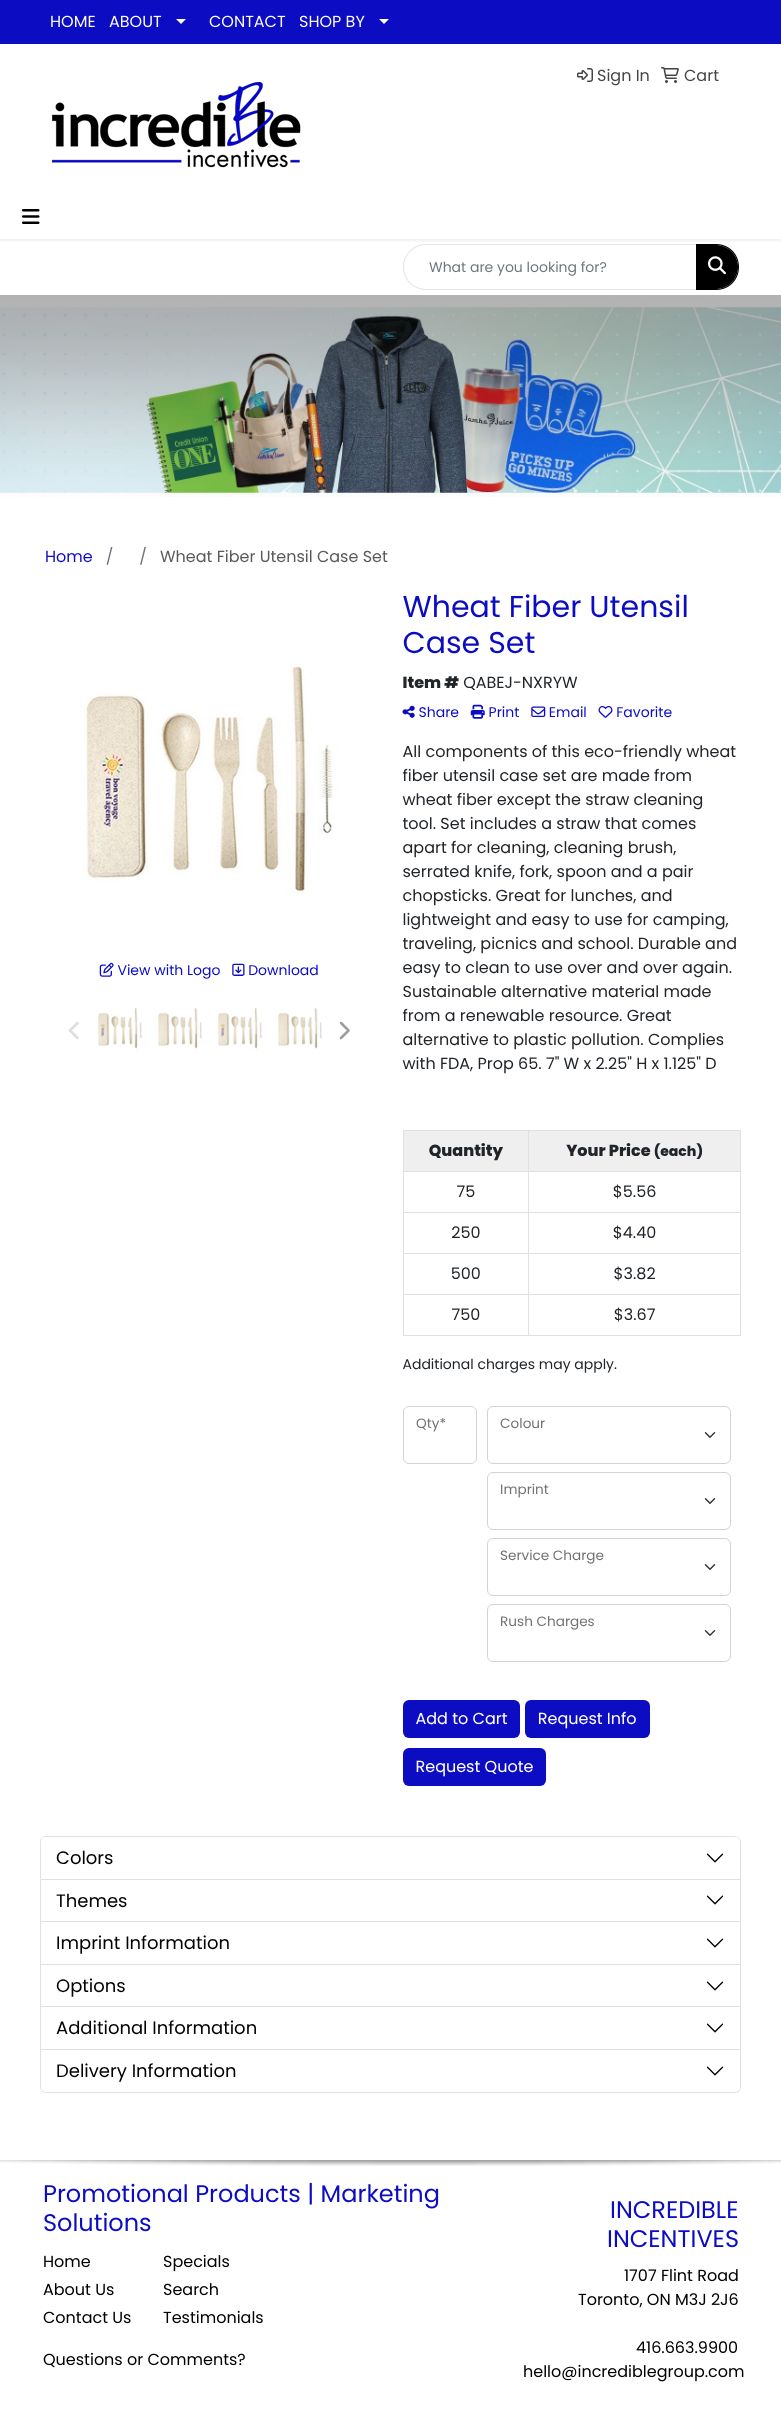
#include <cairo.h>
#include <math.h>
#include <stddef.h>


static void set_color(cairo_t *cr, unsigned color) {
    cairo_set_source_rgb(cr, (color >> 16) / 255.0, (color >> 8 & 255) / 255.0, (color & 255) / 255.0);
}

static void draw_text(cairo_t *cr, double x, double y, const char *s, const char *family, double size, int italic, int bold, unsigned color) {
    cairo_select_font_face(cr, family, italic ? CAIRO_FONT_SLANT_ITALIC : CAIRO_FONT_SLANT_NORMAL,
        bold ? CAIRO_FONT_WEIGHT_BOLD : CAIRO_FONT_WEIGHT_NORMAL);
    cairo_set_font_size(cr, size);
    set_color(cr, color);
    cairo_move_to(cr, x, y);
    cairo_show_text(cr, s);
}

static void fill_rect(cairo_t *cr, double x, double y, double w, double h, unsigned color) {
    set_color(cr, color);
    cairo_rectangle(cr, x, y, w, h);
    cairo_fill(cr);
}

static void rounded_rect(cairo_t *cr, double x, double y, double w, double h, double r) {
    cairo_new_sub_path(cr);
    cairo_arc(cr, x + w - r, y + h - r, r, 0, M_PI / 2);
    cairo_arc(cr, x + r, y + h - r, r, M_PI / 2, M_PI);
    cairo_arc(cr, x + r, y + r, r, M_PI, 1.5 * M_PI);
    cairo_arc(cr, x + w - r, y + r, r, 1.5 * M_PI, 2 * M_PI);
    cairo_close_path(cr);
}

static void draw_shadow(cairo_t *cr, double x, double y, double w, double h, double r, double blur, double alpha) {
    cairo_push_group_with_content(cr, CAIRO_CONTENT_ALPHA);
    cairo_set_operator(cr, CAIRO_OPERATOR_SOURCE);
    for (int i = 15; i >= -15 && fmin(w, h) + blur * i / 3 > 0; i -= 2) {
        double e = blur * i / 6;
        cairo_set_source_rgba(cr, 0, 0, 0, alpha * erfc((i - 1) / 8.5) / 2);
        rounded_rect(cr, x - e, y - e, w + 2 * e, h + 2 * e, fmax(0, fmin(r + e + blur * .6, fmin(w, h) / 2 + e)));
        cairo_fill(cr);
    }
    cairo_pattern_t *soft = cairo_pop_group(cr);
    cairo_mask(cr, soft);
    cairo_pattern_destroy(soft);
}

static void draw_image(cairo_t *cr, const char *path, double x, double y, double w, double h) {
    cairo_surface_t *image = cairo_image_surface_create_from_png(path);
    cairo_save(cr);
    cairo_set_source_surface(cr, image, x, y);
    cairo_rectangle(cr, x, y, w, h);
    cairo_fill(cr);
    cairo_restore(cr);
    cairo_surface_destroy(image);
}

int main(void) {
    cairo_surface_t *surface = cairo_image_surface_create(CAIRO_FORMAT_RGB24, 781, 2426);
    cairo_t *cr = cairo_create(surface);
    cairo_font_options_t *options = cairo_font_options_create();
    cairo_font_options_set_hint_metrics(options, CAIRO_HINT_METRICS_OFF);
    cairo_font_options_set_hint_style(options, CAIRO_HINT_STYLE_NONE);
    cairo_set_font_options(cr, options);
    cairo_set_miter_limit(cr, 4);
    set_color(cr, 0xFFFFFF);
    cairo_paint(cr);
    fill_rect(cr, 0, 0, 781, 44, 0x0C0CC3);
    draw_text(cr, 50, 27, "HOME", "Poppins", 16, 0, 0, 0xFFFFFF);
    draw_text(cr, 109, 27, "ABOUT", "Poppins", 16, 0, 0, 0xFFFFFF);
    cairo_new_path(cr);
    cairo_move_to(cr, 176, 19);
    cairo_line_to(cr, 186, 19);
    cairo_line_to(cr, 181, 24);
    cairo_close_path(cr);
    cairo_fill(cr);
    draw_text(cr, 209, 27, "CONTACT", "Poppins", 16, 0, 0, 0xFFFFFF);
    draw_text(cr, 299, 27, "SHOP BY", "Poppins", 16, 0, 0, 0xFFFFFF);
    cairo_new_path(cr);
    cairo_move_to(cr, 379, 19);
    cairo_line_to(cr, 389, 19);
    cairo_line_to(cr, 384, 24);
    cairo_close_path(cr);
    cairo_fill(cr);
    draw_image(cr, "assets/img1.png", 577, 68, 16, 14);
    draw_text(cr, 597, 81, "Sign In", "Poppins", 16, 0, 0, 0x444444);
    draw_image(cr, "assets/img2.png", 661, 67, 18, 16);
    draw_text(cr, 684, 81, "Cart", "Poppins", 16, 0, 0, 0x444444);
    draw_image(cr, "assets/img3.png", 51, 81, 250, 87);
    cairo_save(cr);
    cairo_rectangle(cr, 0, 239, 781, 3);
    cairo_clip(cr);
    set_color(cr, 0x000000);
    draw_shadow(cr, 0, 197, 781, 44, 0, 2, 0.07);
    cairo_restore(cr);
    draw_image(cr, "assets/img4.png", 22, 209, 18, 15);
    cairo_new_path(cr);
    cairo_move_to(cr, 426, 244.5);
    cairo_line_to(cr, 696.5, 244.5);
    cairo_line_to(cr, 696.5, 289.5);
    cairo_line_to(cr, 426, 289.5);
    cairo_curve_to(cr, 413.5, 289.5, 403.5, 279.5, 403.5, 267);
    cairo_curve_to(cr, 403.5, 254.5, 413.5, 244.5, 426, 244.5);
    cairo_close_path(cr);
    set_color(cr, 0xE4E4E4);
    cairo_set_line_width(cr, 1);
    cairo_stroke(cr);
    draw_text(cr, 429, 272, "What are you looking for?", "Poppins", 14, 0, 0, 0x6C757D);
    set_color(cr, 0x000000);
    cairo_new_path(cr);
    cairo_move_to(cr, 696, 245);
    cairo_line_to(cr, 716, 245);
    cairo_curve_to(cr, 728, 245, 738, 255, 738, 267);
    cairo_curve_to(cr, 738, 279, 728, 289, 716, 289);
    cairo_line_to(cr, 696, 289);
    cairo_close_path(cr);
    cairo_fill(cr);
    cairo_set_fill_rule(cr, CAIRO_FILL_RULE_EVEN_ODD);
    cairo_new_path(cr);
    cairo_move_to(cr, 696, 244);
    cairo_line_to(cr, 716, 244);
    cairo_curve_to(cr, 729, 244, 739, 254, 739, 267);
    cairo_curve_to(cr, 739, 280, 729, 290, 716, 290);
    cairo_line_to(cr, 696, 290);
    cairo_close_path(cr);
    cairo_move_to(cr, 696, 245);
    cairo_line_to(cr, 716, 245);
    cairo_curve_to(cr, 728, 245, 738, 255, 738, 267);
    cairo_curve_to(cr, 738, 279, 728, 289, 716, 289);
    cairo_line_to(cr, 696, 289);
    cairo_close_path(cr);
    cairo_fill(cr);
    draw_image(cr, "assets/img5.png", 708, 256, 18, 19);
    draw_image(cr, "assets/img6.png", 0, 295, 781, 202);
    draw_image(cr, "assets/img7.png", 40, 547, 701, 1546);
    draw_image(cr, "assets/img8.png", 0, 2160, 781, 6);
    draw_text(cr, 43, 2202, "Promotional Products | Marketing", "Poppins", 24, 0, 0, 0x0C0CC3);
    draw_text(cr, 43, 2231, "Solutions", "Poppins", 24, 0, 0, 0x0C0CC3);
    draw_text(cr, 43, 2267, "Home", "Poppins", 16, 0, 0, 0x000000);
    draw_text(cr, 43, 2295, "About Us", "Poppins", 16, 0, 0, 0x000000);
    draw_text(cr, 43, 2323, "Contact Us", "Poppins", 16, 0, 0, 0x000000);
    draw_text(cr, 163, 2267, "Specials", "Poppins", 16, 0, 0, 0x000000);
    draw_text(cr, 163, 2295, "Search", "Poppins", 16, 0, 0, 0x000000);
    draw_text(cr, 163, 2323, "Testimonials", "Poppins", 16, 0, 0, 0x000000);
    draw_text(cr, 43, 2365, "Questions or Comments?", "Poppins", 16, 0, 0, 0x000000);
    draw_text(cr, 610, 2218, "INCREDIBLE", "Poppins", 24, 0, 0, 0x0C0CC3);
    draw_text(cr, 607, 2247, "INCENTIVES", "Poppins", 24, 0, 0, 0x0C0CC3);
    draw_text(cr, 624, 2281, "1707 Flint Road", "Poppins", 16, 0, 0, 0x000000);
    draw_text(cr, 578, 2305, "Toronto, ON M3J 2J6", "Poppins", 16, 0, 0, 0x000000);
    draw_text(cr, 636, 2353, "416.663.9900", "Poppins", 16, 0, 0, 0x000000);
    draw_text(cr, 523, 2377, "hello@incrediblegroup.com", "Poppins", 16, 0, 0, 0x000000);
    cairo_surface_write_to_png(surface, "output.png");
    cairo_font_options_destroy(options);
    cairo_destroy(cr);
    cairo_surface_destroy(surface);
    return 0;
}
